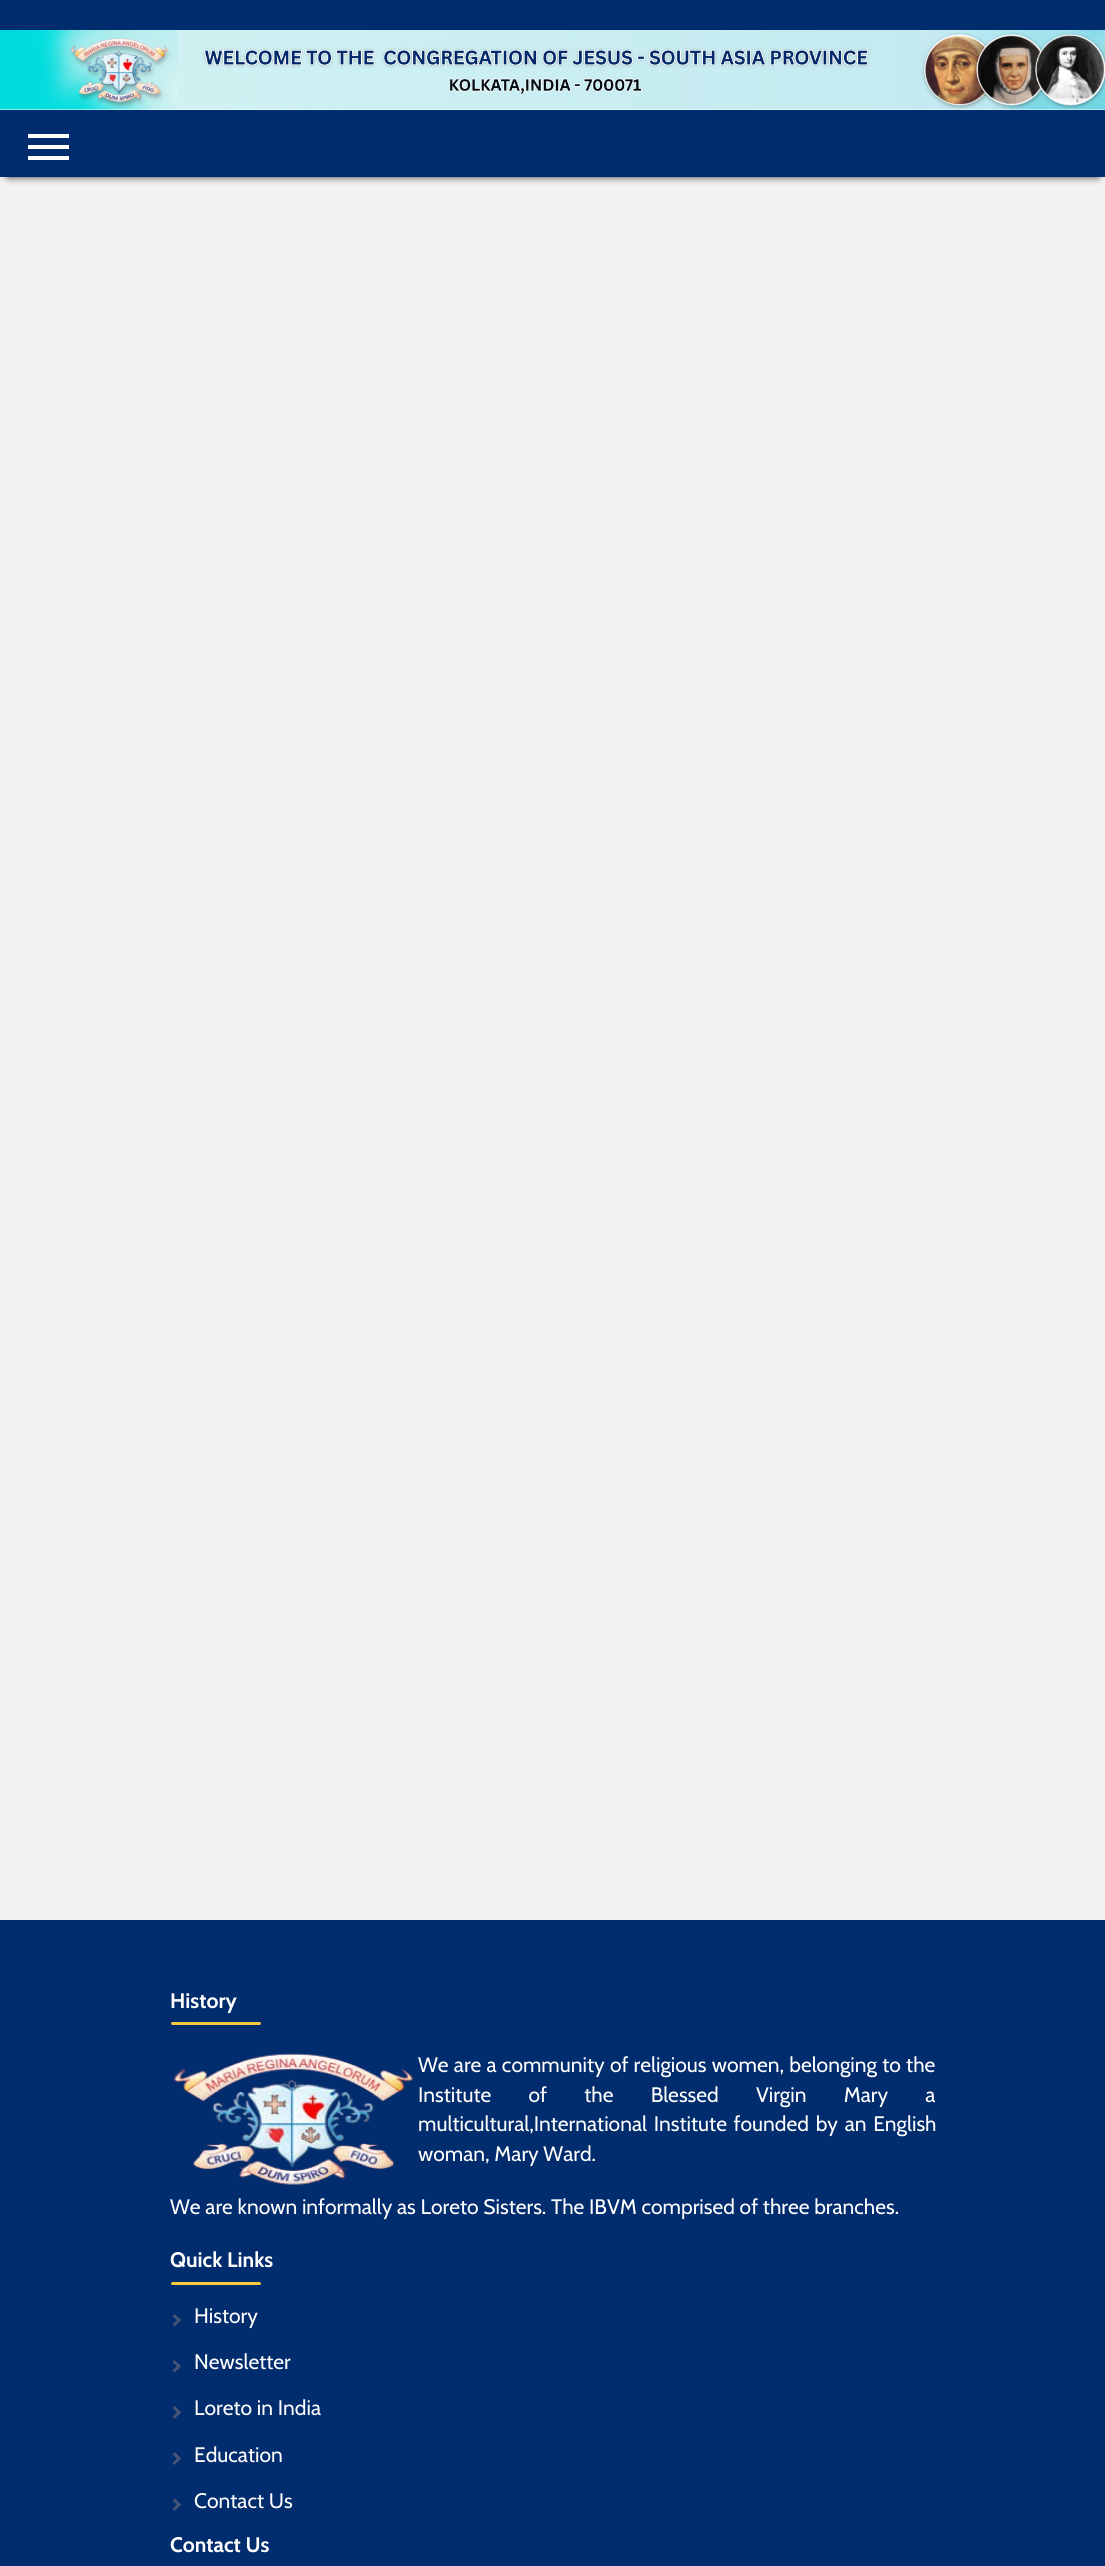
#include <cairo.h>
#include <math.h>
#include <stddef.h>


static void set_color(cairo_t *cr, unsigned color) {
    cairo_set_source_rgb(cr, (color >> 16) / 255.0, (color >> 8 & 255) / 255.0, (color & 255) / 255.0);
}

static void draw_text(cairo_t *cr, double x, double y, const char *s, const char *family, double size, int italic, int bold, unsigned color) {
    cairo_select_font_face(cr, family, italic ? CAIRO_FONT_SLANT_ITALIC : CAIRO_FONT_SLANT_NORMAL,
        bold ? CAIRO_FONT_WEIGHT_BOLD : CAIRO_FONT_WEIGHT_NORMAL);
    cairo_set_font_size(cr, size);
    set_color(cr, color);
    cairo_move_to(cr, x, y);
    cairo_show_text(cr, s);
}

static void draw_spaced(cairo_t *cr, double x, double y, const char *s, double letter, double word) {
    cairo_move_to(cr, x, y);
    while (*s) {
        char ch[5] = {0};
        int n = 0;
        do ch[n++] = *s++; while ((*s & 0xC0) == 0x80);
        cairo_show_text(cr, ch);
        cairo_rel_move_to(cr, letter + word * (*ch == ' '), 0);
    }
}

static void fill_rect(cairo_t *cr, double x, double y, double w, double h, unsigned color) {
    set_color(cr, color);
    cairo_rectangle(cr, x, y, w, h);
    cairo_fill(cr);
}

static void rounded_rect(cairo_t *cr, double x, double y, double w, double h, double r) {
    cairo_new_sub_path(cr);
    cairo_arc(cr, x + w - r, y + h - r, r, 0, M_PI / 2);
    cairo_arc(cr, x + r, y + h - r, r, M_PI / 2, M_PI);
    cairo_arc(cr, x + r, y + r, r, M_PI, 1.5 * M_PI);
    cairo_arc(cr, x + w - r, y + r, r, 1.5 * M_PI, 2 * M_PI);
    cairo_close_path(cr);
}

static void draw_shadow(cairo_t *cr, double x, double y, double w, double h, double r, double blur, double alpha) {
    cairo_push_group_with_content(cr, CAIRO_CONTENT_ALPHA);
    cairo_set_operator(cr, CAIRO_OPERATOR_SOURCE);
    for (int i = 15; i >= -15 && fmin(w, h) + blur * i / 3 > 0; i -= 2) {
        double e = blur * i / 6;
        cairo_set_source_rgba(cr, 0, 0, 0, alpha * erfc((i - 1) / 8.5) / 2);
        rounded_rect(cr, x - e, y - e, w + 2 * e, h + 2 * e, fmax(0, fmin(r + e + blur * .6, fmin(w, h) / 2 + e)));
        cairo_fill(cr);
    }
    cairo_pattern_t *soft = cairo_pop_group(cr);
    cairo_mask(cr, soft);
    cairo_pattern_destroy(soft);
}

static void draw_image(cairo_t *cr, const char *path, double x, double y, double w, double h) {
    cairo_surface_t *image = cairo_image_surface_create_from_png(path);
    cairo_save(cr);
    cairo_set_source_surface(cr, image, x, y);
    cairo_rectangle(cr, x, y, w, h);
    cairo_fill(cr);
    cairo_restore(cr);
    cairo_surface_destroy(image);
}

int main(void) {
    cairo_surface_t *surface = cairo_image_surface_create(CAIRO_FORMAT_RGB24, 1105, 2566);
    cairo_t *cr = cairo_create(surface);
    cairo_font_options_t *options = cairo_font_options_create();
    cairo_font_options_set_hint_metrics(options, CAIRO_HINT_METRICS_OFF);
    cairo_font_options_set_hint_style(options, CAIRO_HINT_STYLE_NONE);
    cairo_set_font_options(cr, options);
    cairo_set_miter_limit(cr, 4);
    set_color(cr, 0xF2F2F2);
    cairo_paint(cr);
    fill_rect(cr, 0, 109, 1105, 1, 0xFFFFFF);
    fill_rect(cr, 0, 0, 1105, 30, 0x012C6D);
    draw_image(cr, "assets/img1.png", 0, 30, 1105, 80);
    set_color(cr, 0x333333);
    draw_shadow(cr, 8, 125, 1090, 52, 0, 4, 1);
    fill_rect(cr, 0, 110, 1105, 67, 0x012C6D);
    set_color(cr, 0xFFFFFF);
    cairo_new_path(cr);
    cairo_move_to(cr, 28, 160);
    cairo_line_to(cr, 69, 160);
    cairo_line_to(cr, 69, 156);
    cairo_line_to(cr, 28, 156);
    cairo_close_path(cr);
    cairo_move_to(cr, 28, 149);
    cairo_line_to(cr, 69, 149);
    cairo_line_to(cr, 69, 145);
    cairo_line_to(cr, 28, 145);
    cairo_close_path(cr);
    cairo_move_to(cr, 28, 134);
    cairo_line_to(cr, 28, 138);
    cairo_line_to(cr, 69, 138);
    cairo_line_to(cr, 69, 134);
    cairo_close_path(cr);
    cairo_fill(cr);
    fill_rect(cr, 0, 1920, 1105, 646, 0x012C6D);
    draw_text(cr, 170, 2008, "History", "Cabin", 21, 0, 1, 0xFFFFFF);
    set_color(cr, 0xF6C93F);
    rounded_rect(cr, 171, 2022, 90, 3, 1.5);
    cairo_fill(cr);
    draw_image(cr, "assets/img2.png", 173, 2053, 240, 132);
    cairo_select_font_face(cr, "Cabin", CAIRO_FONT_SLANT_NORMAL, CAIRO_FONT_WEIGHT_NORMAL);
    set_color(cr, 0xFFFFFF);
    draw_spaced(cr, 418, 2072, "We are a community of religious women, belonging to the", 0, 0.5);
    draw_spaced(cr, 418, 2102, "Institute of the Blessed Virgin Mary a", 0, 32.5);
    draw_spaced(cr, 418, 2131, "multicultural,International Institute founded by an English", 0, 2);
    draw_text(cr, 418, 2161, "woman, Mary Ward.", "Cabin", 21, 0, 0, 0xFFFFFF);
    draw_text(cr, 170, 2214, "We are known informally as Loreto Sisters. The IBVM comprised of three branches.", "Cabin", 21, 0, 0, 0xFFFFFF);
    draw_text(cr, 170, 2267, "Quick Links", "Cabin", 21, 0, 1, 0xFFFFFF);
    set_color(cr, 0xF6C93F);
    rounded_rect(cr, 171, 2282, 90, 3, 1.5);
    cairo_fill(cr);
    set_color(cr, 0x455476);
    cairo_new_path(cr);
    cairo_move_to(cr, 174.5, 2314);
    cairo_line_to(cr, 181, 2320);
    cairo_line_to(cr, 179, 2322.5);
    cairo_line_to(cr, 172.5, 2316);
    cairo_close_path(cr);
    cairo_fill(cr);
    cairo_new_path(cr);
    cairo_move_to(cr, 179, 2318);
    cairo_line_to(cr, 181, 2320);
    cairo_line_to(cr, 174.5, 2326.5);
    cairo_line_to(cr, 172.5, 2324.5);
    cairo_close_path(cr);
    cairo_fill(cr);
    draw_text(cr, 194, 2323, "History", "Cabin", 21, 0, 0, 0xFFFFFF);
    set_color(cr, 0x455476);
    cairo_new_path(cr);
    cairo_move_to(cr, 174.5, 2360);
    cairo_line_to(cr, 181, 2366.5);
    cairo_line_to(cr, 179, 2368.5);
    cairo_line_to(cr, 172.5, 2362);
    cairo_close_path(cr);
    cairo_fill(cr);
    cairo_new_path(cr);
    cairo_move_to(cr, 179, 2364);
    cairo_line_to(cr, 181, 2366.5);
    cairo_line_to(cr, 174.5, 2372.5);
    cairo_line_to(cr, 172.5, 2370.5);
    cairo_close_path(cr);
    cairo_fill(cr);
    draw_text(cr, 194, 2369, "Newsletter", "Cabin", 21, 0, 0, 0xFFFFFF);
    set_color(cr, 0x455476);
    cairo_new_path(cr);
    cairo_move_to(cr, 175, 2406);
    cairo_line_to(cr, 181, 2412.5);
    cairo_line_to(cr, 179, 2414.5);
    cairo_line_to(cr, 172.5, 2408);
    cairo_close_path(cr);
    cairo_fill(cr);
    cairo_new_path(cr);
    cairo_move_to(cr, 179, 2410.5);
    cairo_line_to(cr, 181, 2412.5);
    cairo_line_to(cr, 174.5, 2419);
    cairo_line_to(cr, 172.5, 2416.5);
    cairo_close_path(cr);
    cairo_fill(cr);
    draw_text(cr, 194, 2415, "Loreto in India", "Cabin", 21, 0, 0, 0xFFFFFF);
    set_color(cr, 0x455476);
    cairo_new_path(cr);
    cairo_move_to(cr, 175, 2452);
    cairo_line_to(cr, 181, 2458.5);
    cairo_line_to(cr, 179, 2460.5);
    cairo_line_to(cr, 172.5, 2454.5);
    cairo_close_path(cr);
    cairo_fill(cr);
    cairo_new_path(cr);
    cairo_move_to(cr, 179, 2456.5);
    cairo_line_to(cr, 181, 2458.5);
    cairo_line_to(cr, 174.5, 2465);
    cairo_line_to(cr, 172.5, 2463);
    cairo_close_path(cr);
    cairo_fill(cr);
    draw_text(cr, 194, 2462, "Education", "Cabin", 21, 0, 0, 0xFFFFFF);
    set_color(cr, 0x455476);
    cairo_new_path(cr);
    cairo_move_to(cr, 175, 2498.5);
    cairo_line_to(cr, 181, 2504.5);
    cairo_line_to(cr, 179, 2507);
    cairo_line_to(cr, 172.5, 2500.5);
    cairo_close_path(cr);
    cairo_fill(cr);
    cairo_new_path(cr);
    cairo_move_to(cr, 179, 2502.5);
    cairo_line_to(cr, 181, 2504.5);
    cairo_line_to(cr, 174.5, 2511);
    cairo_line_to(cr, 172.5, 2509);
    cairo_close_path(cr);
    cairo_fill(cr);
    draw_text(cr, 194, 2508, "Contact Us", "Cabin", 21, 0, 0, 0xFFFFFF);
    draw_text(cr, 170, 2552, "Contact Us", "Cabin", 21, 0, 1, 0xFFFFFF);
    cairo_surface_write_to_png(surface, "output.png");
    cairo_font_options_destroy(options);
    cairo_destroy(cr);
    cairo_surface_destroy(surface);
    return 0;
}
